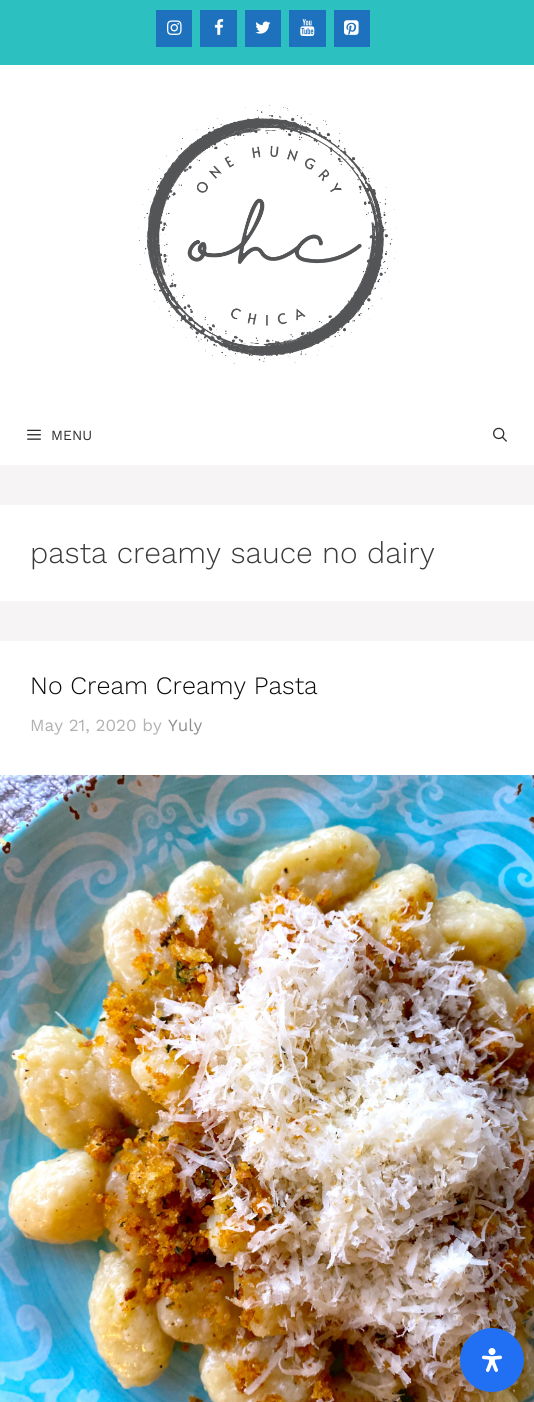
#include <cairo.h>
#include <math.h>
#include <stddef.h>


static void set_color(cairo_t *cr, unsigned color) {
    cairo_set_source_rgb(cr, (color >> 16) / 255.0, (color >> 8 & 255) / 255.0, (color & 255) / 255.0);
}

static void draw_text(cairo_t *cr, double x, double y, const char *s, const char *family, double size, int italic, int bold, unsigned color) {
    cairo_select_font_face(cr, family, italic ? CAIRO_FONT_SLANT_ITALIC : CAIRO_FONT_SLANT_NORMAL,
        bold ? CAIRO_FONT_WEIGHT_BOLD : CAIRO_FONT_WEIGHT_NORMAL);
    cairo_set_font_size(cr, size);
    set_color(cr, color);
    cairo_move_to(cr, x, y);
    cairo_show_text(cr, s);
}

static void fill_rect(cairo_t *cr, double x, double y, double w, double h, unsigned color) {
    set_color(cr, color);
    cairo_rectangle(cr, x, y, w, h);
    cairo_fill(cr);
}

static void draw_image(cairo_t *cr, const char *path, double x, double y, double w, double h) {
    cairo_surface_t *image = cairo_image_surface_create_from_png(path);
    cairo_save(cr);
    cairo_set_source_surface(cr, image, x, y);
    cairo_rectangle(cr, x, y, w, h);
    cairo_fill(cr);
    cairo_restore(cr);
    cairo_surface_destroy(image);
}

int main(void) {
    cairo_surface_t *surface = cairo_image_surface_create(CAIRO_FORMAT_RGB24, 534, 1402);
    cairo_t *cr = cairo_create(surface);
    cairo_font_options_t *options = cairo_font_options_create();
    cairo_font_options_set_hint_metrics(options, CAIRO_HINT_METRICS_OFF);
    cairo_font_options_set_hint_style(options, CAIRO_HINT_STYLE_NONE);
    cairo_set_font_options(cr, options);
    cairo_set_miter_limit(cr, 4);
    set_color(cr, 0xF7F4F6);
    cairo_paint(cr);
    fill_rect(cr, 0, 0, 534, 65, 0x2CC1C0);
    fill_rect(cr, 156, 10, 36, 37, 0x1E72BD);
    draw_image(cr, "assets/img1.png", 167, 20, 15, 15);
    fill_rect(cr, 200, 10, 37, 37, 0x1E72BD);
    draw_image(cr, "assets/img2.png", 214, 19, 10, 16);
    fill_rect(cr, 245, 10, 36, 37, 0x1E72BD);
    draw_image(cr, "assets/img3.png", 255, 21, 16, 13);
    fill_rect(cr, 289, 10, 37, 37, 0x1E72BD);
    draw_image(cr, "assets/img4.png", 300, 19, 15, 18);
    fill_rect(cr, 334, 10, 36, 37, 0x1E72BD);
    draw_image(cr, "assets/img5.png", 344, 20, 15, 15);
    fill_rect(cr, 0, 65, 534, 400, 0xFFFFFF);
    draw_image(cr, "assets/img6.png", 138, 105, 259, 259);
    draw_image(cr, "assets/img7.png", 27, 429, 14, 11);
    draw_text(cr, 51, 440, "MENU", "Work Sans", 14, 0, 0, 0x2D2D2D);
    draw_image(cr, "assets/img8.png", 493, 427, 14, 15);
    fill_rect(cr, 0, 505, 534, 96, 0xFFFFFF);
    draw_text(cr, 30, 563, "pasta creamy sauce no dairy", "Work Sans Light", 30, 0, 0, 0x3A3A3A);
    fill_rect(cr, 0, 641, 534, 134, 0xFFFFFF);
    draw_text(cr, 30, 694, "No Cream Creamy Pasta", "Work Sans Light", 25, 0, 0, 0x0A0A0A);
    draw_text(cr, 30, 731, "May 21, 2020 by", "Work Sans", 17, 0, 0, 0xB2B2B2);
    draw_text(cr, 168, 731, "Yuly", "Work Sans", 17, 0, 0, 0x8E8E8E);
    draw_image(cr, "assets/img9.png", 0, 775, 534, 627);
    set_color(cr, 0x216FF3);
    cairo_arc(cr, 492, 1360, 32, 0, 2 * M_PI);
    cairo_fill(cr);
    draw_image(cr, "assets/img10.png", 482, 1348, 20, 24);
    cairo_surface_write_to_png(surface, "output.png");
    cairo_font_options_destroy(options);
    cairo_destroy(cr);
    cairo_surface_destroy(surface);
    return 0;
}
